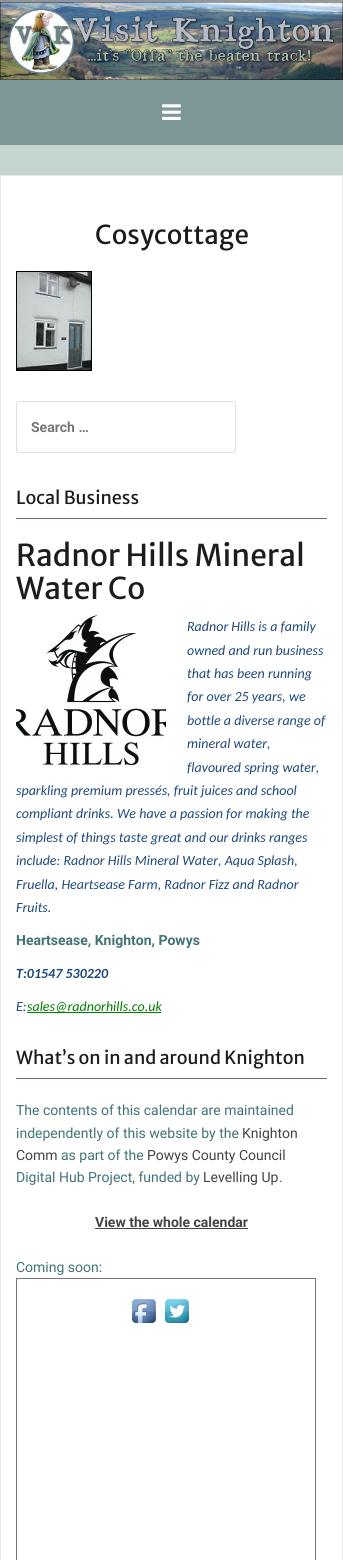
#include <cairo.h>
#include <math.h>
#include <stddef.h>


static void set_color(cairo_t *cr, unsigned color) {
    cairo_set_source_rgb(cr, (color >> 16) / 255.0, (color >> 8 & 255) / 255.0, (color & 255) / 255.0);
}

static void draw_text(cairo_t *cr, double x, double y, const char *s, const char *family, double size, int italic, int bold, unsigned color) {
    cairo_select_font_face(cr, family, italic ? CAIRO_FONT_SLANT_ITALIC : CAIRO_FONT_SLANT_NORMAL,
        bold ? CAIRO_FONT_WEIGHT_BOLD : CAIRO_FONT_WEIGHT_NORMAL);
    cairo_set_font_size(cr, size);
    set_color(cr, color);
    cairo_move_to(cr, x, y);
    cairo_show_text(cr, s);
}

static void fill_rect(cairo_t *cr, double x, double y, double w, double h, unsigned color) {
    set_color(cr, color);
    cairo_rectangle(cr, x, y, w, h);
    cairo_fill(cr);
}

static void rounded_rect(cairo_t *cr, double x, double y, double w, double h, double r) {
    cairo_new_sub_path(cr);
    cairo_arc(cr, x + w - r, y + h - r, r, 0, M_PI / 2);
    cairo_arc(cr, x + r, y + h - r, r, M_PI / 2, M_PI);
    cairo_arc(cr, x + r, y + r, r, M_PI, 1.5 * M_PI);
    cairo_arc(cr, x + w - r, y + r, r, 1.5 * M_PI, 2 * M_PI);
    cairo_close_path(cr);
}

static void draw_image(cairo_t *cr, const char *path, double x, double y, double w, double h) {
    cairo_surface_t *image = cairo_image_surface_create_from_png(path);
    cairo_save(cr);
    cairo_set_source_surface(cr, image, x, y);
    cairo_rectangle(cr, x, y, w, h);
    cairo_fill(cr);
    cairo_restore(cr);
    cairo_surface_destroy(image);
}

int main(void) {
    cairo_surface_t *surface = cairo_image_surface_create(CAIRO_FORMAT_RGB24, 343, 1560);
    cairo_t *cr = cairo_create(surface);
    cairo_font_options_t *options = cairo_font_options_create();
    cairo_font_options_set_hint_metrics(options, CAIRO_HINT_METRICS_OFF);
    cairo_font_options_set_hint_style(options, CAIRO_HINT_STYLE_NONE);
    cairo_set_font_options(cr, options);
    cairo_set_miter_limit(cr, 4);
    set_color(cr, 0xC5D6CE);
    cairo_paint(cr);
    draw_image(cr, "assets/img1.png", 0, 0, 343, 2);
    cairo_set_source_rgba(cr, 1, 1, 1, 0.15);
    cairo_rectangle(cr, 0, 0, 343, 2);
    cairo_fill(cr);
    cairo_set_source_rgba(cr, 1, 1, 1, 0.2);
    cairo_rectangle(cr, 0, 0, 343, 1);
    cairo_fill(cr);
    cairo_rectangle(cr, 0, 1, 343, 1);
    cairo_fill(cr);
    draw_image(cr, "assets/img2.png", 0, 2, 343, 78);
    fill_rect(cr, 0, 80, 343, 65, 0x7D9899);
    draw_image(cr, "assets/img3.png", 162, 104, 19, 16);
    set_color(cr, 0xFFFFFF);
    cairo_rectangle(cr, 0.5, 175.5, 342, 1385);
    cairo_fill_preserve(cr);
    set_color(cr, 0xE8E8E8);
    cairo_set_line_width(cr, 1);
    cairo_stroke(cr);
    draw_text(cr, 95, 244, "Cosycottage", "Merriweather Sans", 26, 0, 0, 0x1C1C1C);
    draw_image(cr, "assets/img4.png", 16, 271, 76, 100);
    rounded_rect(cr, 16.5, 401.5, 219, 51, 2.5);
    set_color(cr, 0xE0E0E0);
    cairo_stroke(cr);
    draw_text(cr, 31, 432, "Search …", "Roboto", 14, 0, 1, 0x757575);
    fill_rect(cr, 16, 518, 311, 1, 0x5F6A7D);
    draw_text(cr, 16, 504, "Local Business", "Merriweather Sans", 18, 0, 0, 0x1C1C1C);
    draw_text(cr, 16, 566, "Radnor Hills Mineral", "Merriweather Sans", 30, 0, 0, 0x1C1C1C);
    draw_text(cr, 16, 599, "Water Co", "Merriweather Sans", 30, 0, 0, 0x1C1C1C);
    draw_image(cr, "assets/img5.png", 16, 615, 150, 150);
    draw_text(cr, 187, 631, "Radnor Hills is a family", "Carlito", 14, 1, 0, 0x1F497D);
    draw_text(cr, 187, 655, "owned and run business", "Carlito", 14, 1, 0, 0x1F497D);
    draw_text(cr, 187, 678, "that has been running", "Carlito", 14, 1, 0, 0x1F497D);
    draw_text(cr, 187, 701, "for over 25 years, we", "Carlito", 14, 1, 0, 0x1F497D);
    draw_text(cr, 187, 725, "bottle a diverse range of", "Carlito", 14, 1, 0, 0x1F497D);
    draw_text(cr, 187, 748, "mineral water,", "Carlito", 14, 1, 0, 0x1F497D);
    draw_text(cr, 187, 772, "flavoured spring water,", "Carlito", 14, 1, 0, 0x1F497D);
    draw_text(cr, 16, 795, "sparkling premium pressés, fruit juices and school", "Carlito", 14, 1, 0, 0x1F497D);
    draw_text(cr, 16, 818, "compliant drinks. We have a passion for making the", "Carlito", 14, 1, 0, 0x1F497D);
    draw_text(cr, 16, 842, "simplest of things taste great and our drinks ranges", "Carlito", 14, 1, 0, 0x1F497D);
    draw_text(cr, 16, 865, "include: Radnor Hills Mineral Water, Aqua Splash,", "Carlito", 14, 1, 0, 0x1F497D);
    draw_text(cr, 16, 889, "Fruella, Heartsease Farm, Radnor Fizz and Radnor", "Carlito", 14, 1, 0, 0x1F497D);
    draw_text(cr, 16, 912, "Fruits.", "Carlito", 14, 1, 0, 0x1F497D);
    draw_text(cr, 16, 945, "Heartsease, Knighton, Powys", "Roboto", 14, 0, 1, 0x417376);
    draw_text(cr, 16, 978, "T:01547 530220", "Carlito", 14, 1, 1, 0x1F497D);
    draw_text(cr, 16, 1011, "E:", "Carlito", 14, 1, 0, 0x1F497D);
    fill_rect(cr, 27, 1012, 134, 1, 0x008000);
    draw_text(cr, 27, 1011, "sales@radnorhills.co.uk", "Carlito", 14, 1, 0, 0x008000);
    fill_rect(cr, 16, 1078, 311, 1, 0x5F6A7D);
    draw_text(cr, 16, 1064, "What’s on in and around Knighton", "Merriweather Sans", 18, 0, 0, 0x1C1C1C);
    draw_text(cr, 16, 1115, "The contents of this calendar are maintained", "Roboto", 14, 0, 0, 0x417376);
    draw_text(cr, 16, 1138, "independently of this website by the", "Roboto", 14, 0, 0, 0x417376);
    draw_text(cr, 242, 1138, "Knighton", "Roboto", 14, 0, 0, 0x424344);
    draw_text(cr, 16, 1160, "Comm", "Roboto", 14, 0, 0, 0x424344);
    draw_text(cr, 61, 1160, "as part of the", "Roboto", 14, 0, 0, 0x417376);
    draw_text(cr, 147, 1160, "Powys County Council", "Roboto", 14, 0, 0, 0x424344);
    draw_text(cr, 16, 1182, "Digital Hub Project, funded by", "Roboto", 14, 0, 0, 0x417376);
    draw_text(cr, 203, 1182, "Levelling Up", "Roboto", 14, 0, 0, 0x424344);
    draw_text(cr, 279, 1182, ".", "Roboto", 14, 0, 0, 0x417376);
    draw_text(cr, 95, 1227, "View the whole calendar", "Roboto", 14, 0, 1, 0x424344);
    fill_rect(cr, 95, 1228, 153, 1, 0x424344);
    draw_text(cr, 16, 1272, "Coming soon:", "Roboto", 14, 0, 0, 0x417376);
    cairo_rectangle(cr, 16.5, 1278.5, 299, 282);
    set_color(cr, 0x777777);
    cairo_stroke(cr);
    draw_image(cr, "assets/img6.png", 132, 1299, 24, 24);
    draw_image(cr, "assets/img7.png", 165, 1299, 24, 24);
    cairo_surface_write_to_png(surface, "output.png");
    cairo_font_options_destroy(options);
    cairo_destroy(cr);
    cairo_surface_destroy(surface);
    return 0;
}
